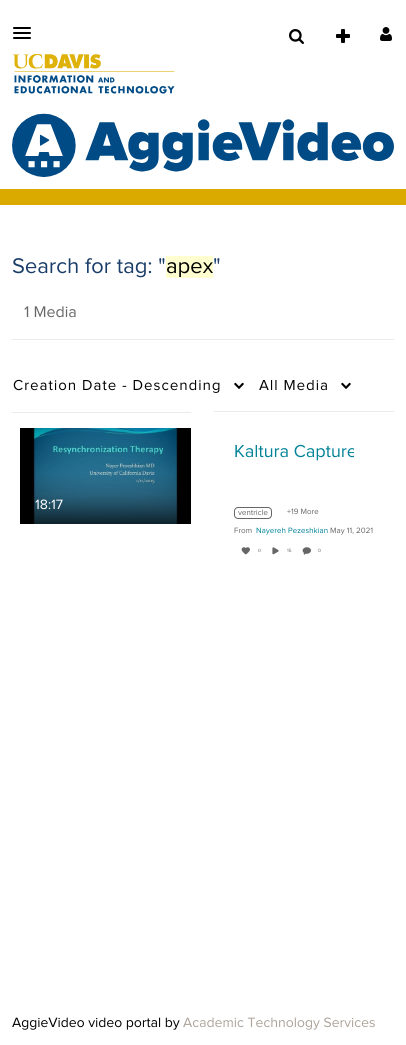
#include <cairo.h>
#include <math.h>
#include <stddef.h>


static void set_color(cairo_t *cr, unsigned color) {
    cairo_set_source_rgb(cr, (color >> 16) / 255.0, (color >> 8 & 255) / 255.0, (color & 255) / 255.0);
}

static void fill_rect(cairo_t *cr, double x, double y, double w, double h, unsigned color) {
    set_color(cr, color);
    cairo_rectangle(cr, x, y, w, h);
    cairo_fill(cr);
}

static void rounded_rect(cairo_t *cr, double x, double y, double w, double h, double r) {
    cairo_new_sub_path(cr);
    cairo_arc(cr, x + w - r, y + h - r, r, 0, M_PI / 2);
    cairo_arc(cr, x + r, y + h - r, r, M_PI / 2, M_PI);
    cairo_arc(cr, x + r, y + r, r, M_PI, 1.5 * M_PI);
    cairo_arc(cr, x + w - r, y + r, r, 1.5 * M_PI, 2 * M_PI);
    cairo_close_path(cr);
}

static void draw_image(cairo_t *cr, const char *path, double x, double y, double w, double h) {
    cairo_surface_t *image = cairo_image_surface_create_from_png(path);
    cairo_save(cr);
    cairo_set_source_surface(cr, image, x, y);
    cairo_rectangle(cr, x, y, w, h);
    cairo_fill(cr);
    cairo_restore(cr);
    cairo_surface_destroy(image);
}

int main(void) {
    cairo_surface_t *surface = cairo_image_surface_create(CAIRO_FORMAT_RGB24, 406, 1045);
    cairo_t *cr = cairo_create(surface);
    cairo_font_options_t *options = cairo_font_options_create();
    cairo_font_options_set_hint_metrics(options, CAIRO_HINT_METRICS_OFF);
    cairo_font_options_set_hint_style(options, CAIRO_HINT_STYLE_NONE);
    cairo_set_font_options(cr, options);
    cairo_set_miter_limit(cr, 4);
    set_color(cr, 0xFFFFFF);
    cairo_paint(cr);
    fill_rect(cr, 0, 189, 406, 16, 0xDAAA00);
    set_color(cr, 0x000000);
    rounded_rect(cr, 13, 27, 18, 2, 1);
    cairo_fill(cr);
    rounded_rect(cr, 13, 32, 18, 2, 1);
    cairo_fill(cr);
    rounded_rect(cr, 13, 37, 18, 2, 1);
    cairo_fill(cr);
    draw_image(cr, "assets/img1.png", 289, 29, 15, 15);
    draw_image(cr, "assets/img2.png", 336, 29, 14, 14);
    draw_image(cr, "assets/img3.png", 380, 27, 12, 14);
    draw_image(cr, "assets/img4.png", 12, 54, 382, 123);
    draw_image(cr, "assets/img5.png", 12, 258, 153, 20);
    fill_rect(cr, 166, 256, 47, 22, 0xFFFFCF);
    draw_image(cr, "assets/img6.png", 214, 258, 6, 6);
    draw_image(cr, "assets/img7.png", 167, 262, 46, 16);
    fill_rect(cr, 12, 339, 382, 1, 0xEBEBEB);
    draw_image(cr, "assets/img8.png", 24, 306, 52, 12);
    draw_image(cr, "assets/img9.png", 13, 379, 207, 14);
    draw_image(cr, "assets/img10.png", 234, 382, 10, 7);
    draw_image(cr, "assets/img11.png", 259, 380, 68, 11);
    draw_image(cr, "assets/img10.png", 341, 382, 10, 7);
    fill_rect(cr, 12, 412, 179, 1, 0xEBEBEB);
    draw_image(cr, "assets/img12.png", 20, 428, 171, 96);
    draw_image(cr, "assets/img13.png", 35, 499, 28, 11);
    fill_rect(cr, 214, 411, 180, 1, 0xEBEBEB);
    draw_image(cr, "assets/img14.png", 235, 444, 119, 17);
    rounded_rect(cr, 234.5, 507.5, 37, 11, 3.5);
    set_color(cr, 0x666666);
    cairo_set_line_width(cr, 1);
    cairo_stroke(cr);
    draw_image(cr, "assets/img15.png", 238, 509, 30, 7);
    draw_image(cr, "assets/img16.png", 287, 508, 32, 7);
    draw_image(cr, "assets/img17.png", 234, 527, 18, 7);
    draw_image(cr, "assets/img18.png", 256, 527, 72, 8);
    draw_image(cr, "assets/img19.png", 330, 527, 43, 8);
    draw_image(cr, "assets/img20.png", 241, 547, 9, 8);
    draw_image(cr, "assets/img21.png", 258, 548, 3, 4);
    draw_image(cr, "assets/img22.png", 272, 547, 7, 8);
    draw_image(cr, "assets/img23.png", 287, 548, 5, 4);
    draw_image(cr, "assets/img24.png", 302, 547, 9, 8);
    draw_image(cr, "assets/img21.png", 318, 548, 3, 4);
    draw_image(cr, "assets/img25.png", 12, 1017, 168, 13);
    draw_image(cr, "assets/img26.png", 183, 1017, 192, 13);
    cairo_surface_write_to_png(surface, "output.png");
    cairo_font_options_destroy(options);
    cairo_destroy(cr);
    cairo_surface_destroy(surface);
    return 0;
}
